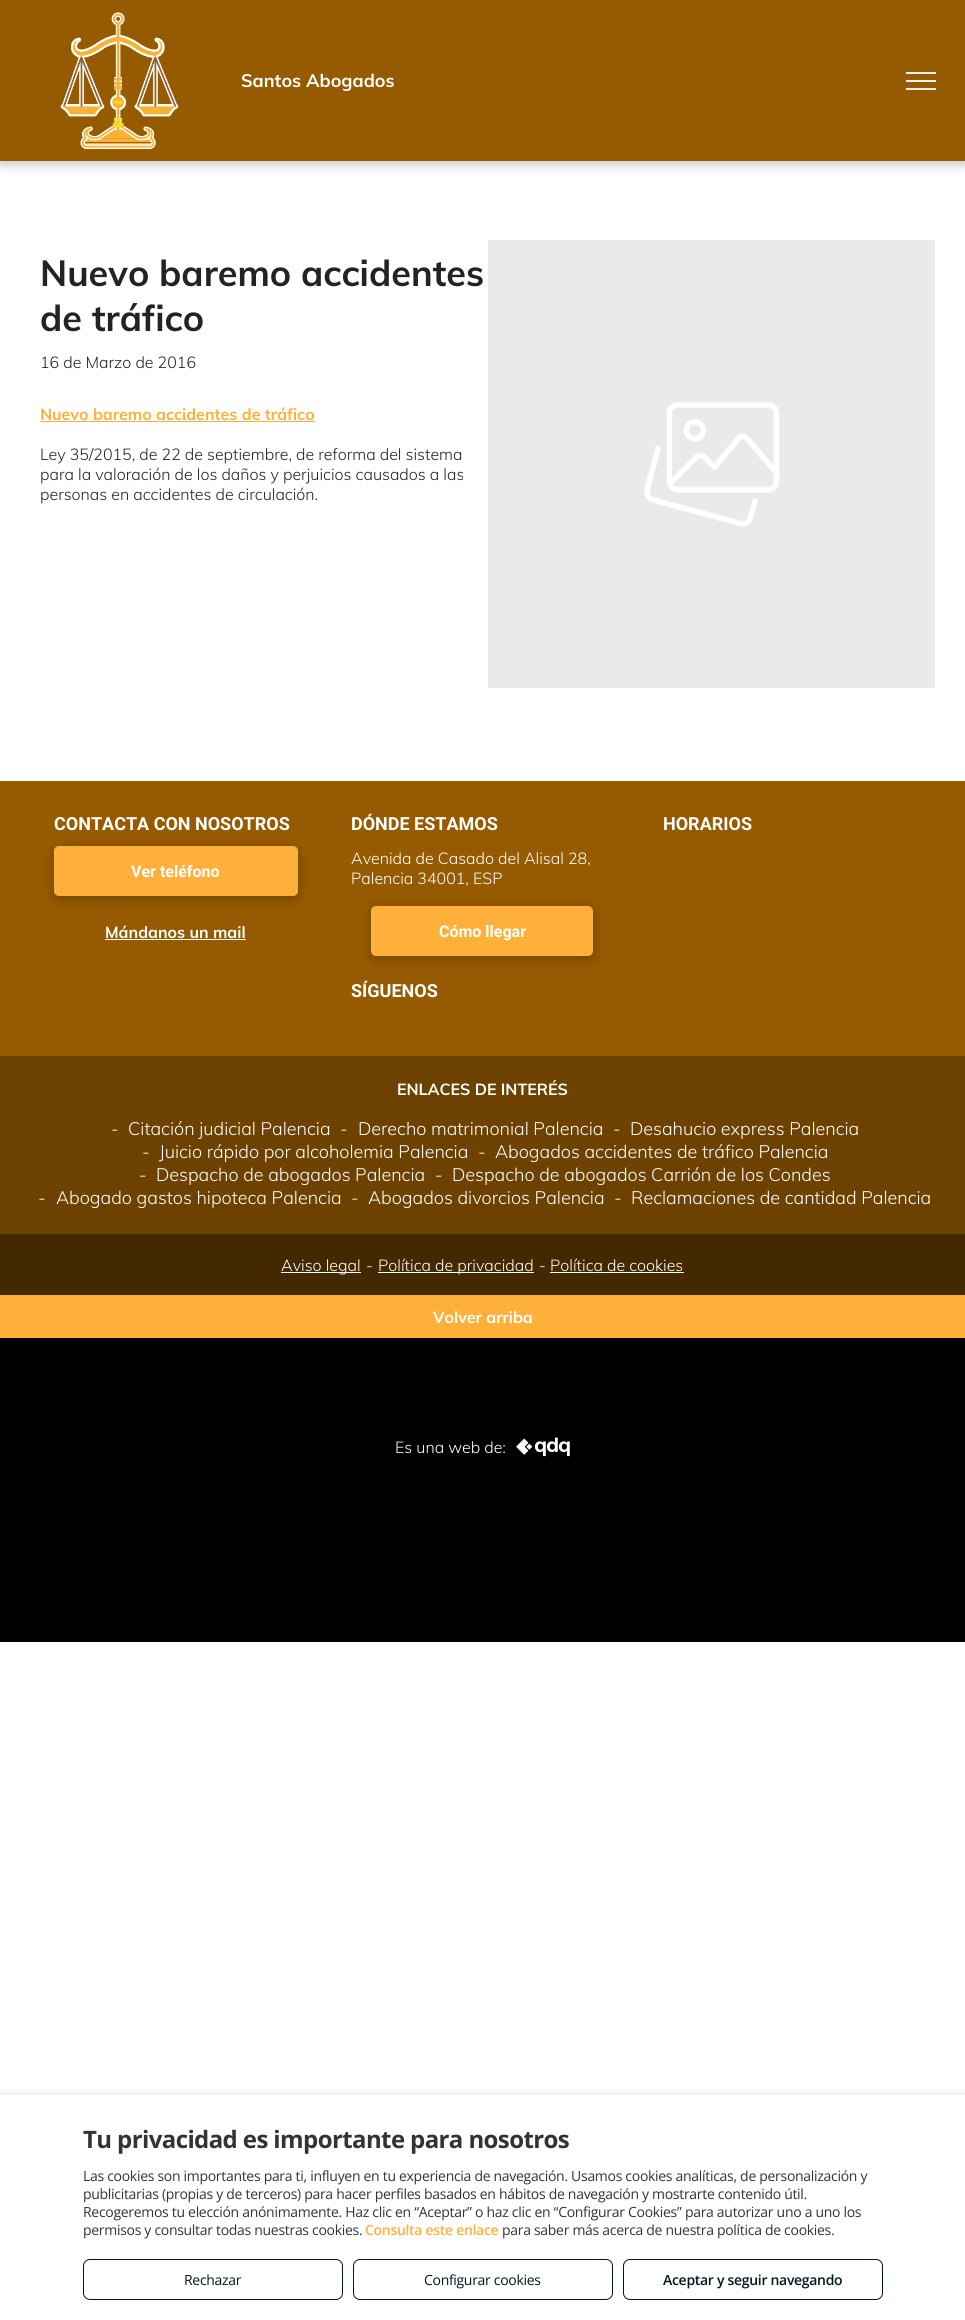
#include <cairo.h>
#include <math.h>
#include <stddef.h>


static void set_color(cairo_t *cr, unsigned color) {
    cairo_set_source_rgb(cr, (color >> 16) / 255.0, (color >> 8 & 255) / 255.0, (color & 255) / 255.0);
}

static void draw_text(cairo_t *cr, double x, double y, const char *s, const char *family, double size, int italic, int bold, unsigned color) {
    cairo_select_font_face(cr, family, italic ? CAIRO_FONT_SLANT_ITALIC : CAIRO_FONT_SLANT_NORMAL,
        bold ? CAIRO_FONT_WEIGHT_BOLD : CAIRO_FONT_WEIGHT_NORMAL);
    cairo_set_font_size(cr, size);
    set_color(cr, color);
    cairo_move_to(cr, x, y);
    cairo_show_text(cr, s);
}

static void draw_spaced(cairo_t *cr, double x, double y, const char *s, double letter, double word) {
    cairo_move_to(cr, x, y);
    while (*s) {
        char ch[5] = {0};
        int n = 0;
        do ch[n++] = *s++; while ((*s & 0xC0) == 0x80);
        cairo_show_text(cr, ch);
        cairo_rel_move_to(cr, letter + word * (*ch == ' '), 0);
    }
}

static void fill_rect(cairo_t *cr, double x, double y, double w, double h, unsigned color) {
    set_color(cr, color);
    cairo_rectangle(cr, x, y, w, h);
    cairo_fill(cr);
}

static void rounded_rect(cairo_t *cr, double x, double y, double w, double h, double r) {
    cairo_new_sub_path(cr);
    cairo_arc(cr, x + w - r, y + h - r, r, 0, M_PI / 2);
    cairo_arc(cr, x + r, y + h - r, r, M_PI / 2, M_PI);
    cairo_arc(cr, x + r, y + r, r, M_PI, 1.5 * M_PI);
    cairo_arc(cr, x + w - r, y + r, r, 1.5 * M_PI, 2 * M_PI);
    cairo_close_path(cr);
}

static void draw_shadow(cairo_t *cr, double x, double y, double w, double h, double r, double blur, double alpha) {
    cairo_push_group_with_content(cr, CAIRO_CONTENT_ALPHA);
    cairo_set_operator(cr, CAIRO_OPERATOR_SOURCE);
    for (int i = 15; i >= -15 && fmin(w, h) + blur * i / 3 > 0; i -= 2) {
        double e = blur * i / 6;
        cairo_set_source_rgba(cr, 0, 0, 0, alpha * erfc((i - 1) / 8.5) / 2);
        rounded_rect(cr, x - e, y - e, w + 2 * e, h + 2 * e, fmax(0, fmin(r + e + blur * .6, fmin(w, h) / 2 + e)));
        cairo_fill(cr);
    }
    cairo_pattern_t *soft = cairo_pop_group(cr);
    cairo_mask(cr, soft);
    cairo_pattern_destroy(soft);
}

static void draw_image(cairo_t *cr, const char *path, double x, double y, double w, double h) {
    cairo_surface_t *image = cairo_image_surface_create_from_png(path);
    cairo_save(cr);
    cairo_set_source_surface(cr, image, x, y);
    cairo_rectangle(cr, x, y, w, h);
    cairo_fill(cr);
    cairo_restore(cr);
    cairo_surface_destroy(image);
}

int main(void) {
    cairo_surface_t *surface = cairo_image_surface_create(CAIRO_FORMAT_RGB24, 965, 2320);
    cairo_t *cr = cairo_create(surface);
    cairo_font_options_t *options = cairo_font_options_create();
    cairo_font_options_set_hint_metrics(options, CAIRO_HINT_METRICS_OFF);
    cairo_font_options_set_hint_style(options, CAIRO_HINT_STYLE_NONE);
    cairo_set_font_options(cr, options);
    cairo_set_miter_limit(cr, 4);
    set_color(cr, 0xFFFFFF);
    cairo_paint(cr);
    set_color(cr, 0x000000);
    draw_shadow(cr, 0, 3, 965, 161, 0, 5.5, 0.25);
    fill_rect(cr, 0, 0, 965, 161, 0x965A00);
    draw_image(cr, "assets/img1.png", 60, 12, 119, 138);
    draw_text(cr, 241, 87, "Santos Abogados", "Muli", 18, 0, 1, 0xFFFFFF);
    fill_rect(cr, 906, 72, 30, 2, 0xF0F0F0);
    fill_rect(cr, 906, 80, 30, 2, 0xF0F0F0);
    fill_rect(cr, 906, 88, 30, 2, 0xF0F0F0);
    draw_text(cr, 40, 286, "Nuevo baremo accidentes", "Muli", 36, 0, 1, 0x232323);
    draw_text(cr, 40, 331, "de tráfico", "Muli", 36, 0, 1, 0x232323);
    draw_text(cr, 40, 368, "16 de Marzo de 2016", "Muli Light", 16, 0, 0, 0x232323);
    draw_text(cr, 40, 420, "Nuevo baremo accidentes de tráfico", "Muli", 16, 0, 1, 0xFFB03B);
    fill_rect(cr, 40, 421, 275, 1, 0xFFB03B);
    draw_text(cr, 40, 460, "Ley 35/2015, de 22 de septiembre, de reforma del sistema", "Muli Light", 16, 0, 0, 0x232323);
    draw_text(cr, 40, 480, "para la valoración de los daños y perjuicios causados a las", "Muli Light", 16, 0, 0, 0x232323);
    draw_text(cr, 40, 500, "personas en accidentes de circulación.", "Muli Light", 16, 0, 0, 0x232323);
    draw_image(cr, "assets/img2.png", 488, 240, 447, 448);
    fill_rect(cr, 0, 781, 965, 275, 0x965A00);
    draw_text(cr, 54, 830, "CONTACTA CON NOSOTROS", "Roboto", 18, 0, 1, 0xFFFFFF);
    set_color(cr, 0x000000);
    draw_shadow(cr, 54, 849, 244, 50, 5, 5.5, 0.25);
    set_color(cr, 0xFFB03B);
    rounded_rect(cr, 54, 846, 244, 50, 5);
    cairo_fill(cr);
    draw_text(cr, 131, 877, "Ver teléfono", "Roboto", 16, 0, 1, 0xFFFFFF);
    draw_text(cr, 105, 938, "Mándanos un mail", "Muli", 16, 0, 1, 0xFFFFFF);
    fill_rect(cr, 105, 939, 141, 1, 0xFFFFFF);
    draw_text(cr, 351, 830, "DÓNDE ESTAMOS", "Roboto", 18, 0, 1, 0xFFFFFF);
    draw_text(cr, 351, 864, "Avenida de Casado del Alisal 28,", "Muli Light", 16, 0, 0, 0xFFFFFF);
    draw_text(cr, 351, 884, "Palencia 34001, ESP", "Muli Light", 16, 0, 0, 0xFFFFFF);
    set_color(cr, 0x000000);
    draw_shadow(cr, 371, 909, 222, 50, 5, 5.5, 0.25);
    set_color(cr, 0xFFB03B);
    rounded_rect(cr, 371, 906, 222, 50, 5);
    cairo_fill(cr);
    draw_text(cr, 439, 937, "Cómo llegar", "Roboto", 16, 0, 1, 0xFFFFFF);
    draw_text(cr, 351, 997, "SÍGUENOS", "Roboto", 18, 0, 1, 0xFFFFFF);
    draw_text(cr, 663, 830, "HORARIOS", "Roboto", 18, 0, 1, 0xFFFFFF);
    fill_rect(cr, 0, 1056, 965, 178, 0x6D4200);
    draw_text(cr, 397, 1095, "ENLACES DE INTERÉS", "Muli", 16, 0, 1, 0xFFFFFF);
    draw_text(cr, 111, 1135, "-", "Muli Light", 18, 0, 0, 0xFFFFFF);
    draw_text(cr, 128, 1135, "Citación judicial Palencia", "Muli Light", 18, 0, 0, 0xFFFFFF);
    draw_text(cr, 340, 1135, "-", "Muli Light", 18, 0, 0, 0xFFFFFF);
    draw_text(cr, 358, 1135, "Derecho matrimonial Palencia", "Muli Light", 18, 0, 0, 0xFFFFFF);
    draw_text(cr, 613, 1135, "-", "Muli Light", 18, 0, 0, 0xFFFFFF);
    draw_text(cr, 630, 1135, "Desahucio express Palencia", "Muli Light", 18, 0, 0, 0xFFFFFF);
    draw_text(cr, 142, 1158, "-", "Muli Light", 18, 0, 0, 0xFFFFFF);
    draw_text(cr, 159, 1158, "Juicio rápido por alcoholemia Palencia", "Muli Light", 18, 0, 0, 0xFFFFFF);
    draw_text(cr, 478, 1158, "-", "Muli Light", 18, 0, 0, 0xFFFFFF);
    draw_text(cr, 495, 1158, "Abogados accidentes de tráfico Palencia", "Muli Light", 18, 0, 0, 0xFFFFFF);
    draw_text(cr, 139, 1181, "-", "Muli Light", 18, 0, 0, 0xFFFFFF);
    draw_text(cr, 156, 1181, "Despacho de abogados Palencia", "Muli Light", 18, 0, 0, 0xFFFFFF);
    draw_text(cr, 435, 1181, "-", "Muli Light", 18, 0, 0, 0xFFFFFF);
    draw_text(cr, 452, 1181, "Despacho de abogados Carrión de los Condes", "Muli Light", 18, 0, 0, 0xFFFFFF);
    draw_text(cr, 38, 1204, "-", "Muli Light", 18, 0, 0, 0xFFFFFF);
    draw_text(cr, 56, 1204, "Abogado gastos hipoteca Palencia", "Muli Light", 18, 0, 0, 0xFFFFFF);
    draw_text(cr, 351, 1204, "-", "Muli Light", 18, 0, 0, 0xFFFFFF);
    draw_text(cr, 368, 1204, "Abogados divorcios Palencia", "Muli Light", 18, 0, 0, 0xFFFFFF);
    draw_text(cr, 614, 1204, "-", "Muli Light", 18, 0, 0, 0xFFFFFF);
    draw_text(cr, 631, 1204, "Reclamaciones de cantidad Palencia", "Muli Light", 18, 0, 0, 0xFFFFFF);
    fill_rect(cr, 0, 1234, 965, 61, 0x442900);
    fill_rect(cr, 281, 1272, 80, 1, 0xFFFFFF);
    draw_text(cr, 281, 1271, "Aviso legal", "Muli Light", 16, 0, 0, 0xFFFFFF);
    draw_text(cr, 366, 1271, "-", "Muli Light", 16, 0, 0, 0xFFFFFF);
    fill_rect(cr, 378, 1272, 156, 1, 0xFFFFFF);
    draw_text(cr, 378, 1271, "Política de privacidad", "Muli Light", 16, 0, 0, 0xFFFFFF);
    draw_text(cr, 539, 1271, "-", "Muli Light", 16, 0, 0, 0xFFFFFF);
    draw_text(cr, 550, 1271, "Política de cookies", "Muli Light", 16, 0, 0, 0xFFFFFF);
    fill_rect(cr, 550, 1272, 134, 1, 0xFFFFFF);
    fill_rect(cr, 0, 1295, 965, 43, 0xFFB03B);
    draw_text(cr, 433, 1323, "Volver arriba", "Muli", 16, 0, 1, 0xFFFFFF);
    fill_rect(cr, 0, 1338, 965, 304, 0x000000);
    draw_text(cr, 395, 1453, "Es una web de:", "Muli Light", 16, 0, 0, 0xFFFFFF);
    draw_image(cr, "assets/img3.png", 516, 1437, 54, 20);
    set_color(cr, 0x000000);
    draw_shadow(cr, 0, 2093, 965, 225, 0, 5, 0.1);
    fill_rect(cr, 0, 2095, 965, 225, 0xFFFFFF);
    cairo_select_font_face(cr, "Open Sans", CAIRO_FONT_SLANT_NORMAL, CAIRO_FONT_WEIGHT_BOLD);
    cairo_set_font_size(cr, 24);
    set_color(cr, 0x333333);
    draw_spaced(cr, 83, 2148, "Tu privacidad es importante para nosotros", -0.6, 0);
    cairo_select_font_face(cr, "Open Sans", CAIRO_FONT_SLANT_NORMAL, CAIRO_FONT_WEIGHT_NORMAL);
    cairo_set_font_size(cr, 14);
    draw_spaced(cr, 83, 2181, "Las cookies son importantes para ti, influyen en tu experiencia de navegación. Usamos cookies analíticas, de personalización y", -0.3, 0);
    draw_spaced(cr, 83, 2199, "publicitarias (propias y de terceros) para hacer perfiles basados en hábitos de navegación y mostrarte contenido útil.", -0.3, 0);
    draw_spaced(cr, 83, 2217, "Recogeremos tu elección anónimamente. Haz clic en “Aceptar” o haz clic en “Configurar Cookies” para autorizar uno a uno los", -0.3, 0);
    draw_spaced(cr, 83, 2235, "permisos y consultar todas nuestras cookies.", -0.3, 0);
    cairo_select_font_face(cr, "Open Sans SemiBold", CAIRO_FONT_SLANT_NORMAL, CAIRO_FONT_WEIGHT_NORMAL);
    set_color(cr, 0xFFB03B);
    draw_spaced(cr, 365, 2235, "Consulta este enlace", -0.3, 0);
    cairo_select_font_face(cr, "Open Sans", CAIRO_FONT_SLANT_NORMAL, CAIRO_FONT_WEIGHT_NORMAL);
    set_color(cr, 0x333333);
    draw_spaced(cr, 502, 2235, "para saber más acerca de nuestra política de cookies.", -0.3, 0);
    rounded_rect(cr, 83.5, 2259.5, 259, 40, 6.5);
    set_color(cr, 0x03181E);
    cairo_set_line_width(cr, 1);
    cairo_stroke(cr);
    draw_spaced(cr, 184, 2285, "Rechazar", -0.3, 0);
    rounded_rect(cr, 353.5, 2259.5, 259, 40, 6.5);
    cairo_stroke(cr);
    draw_spaced(cr, 424, 2285, "Configurar cookies", -0.3, 0);
    rounded_rect(cr, 623.5, 2259.5, 259, 40, 6.5);
    cairo_stroke(cr);
    cairo_select_font_face(cr, "Open Sans SemiBold", CAIRO_FONT_SLANT_NORMAL, CAIRO_FONT_WEIGHT_NORMAL);
    draw_spaced(cr, 663, 2285, "Aceptar y seguir navegando", -0.3, 0);
    cairo_surface_write_to_png(surface, "output.png");
    cairo_font_options_destroy(options);
    cairo_destroy(cr);
    cairo_surface_destroy(surface);
    return 0;
}
